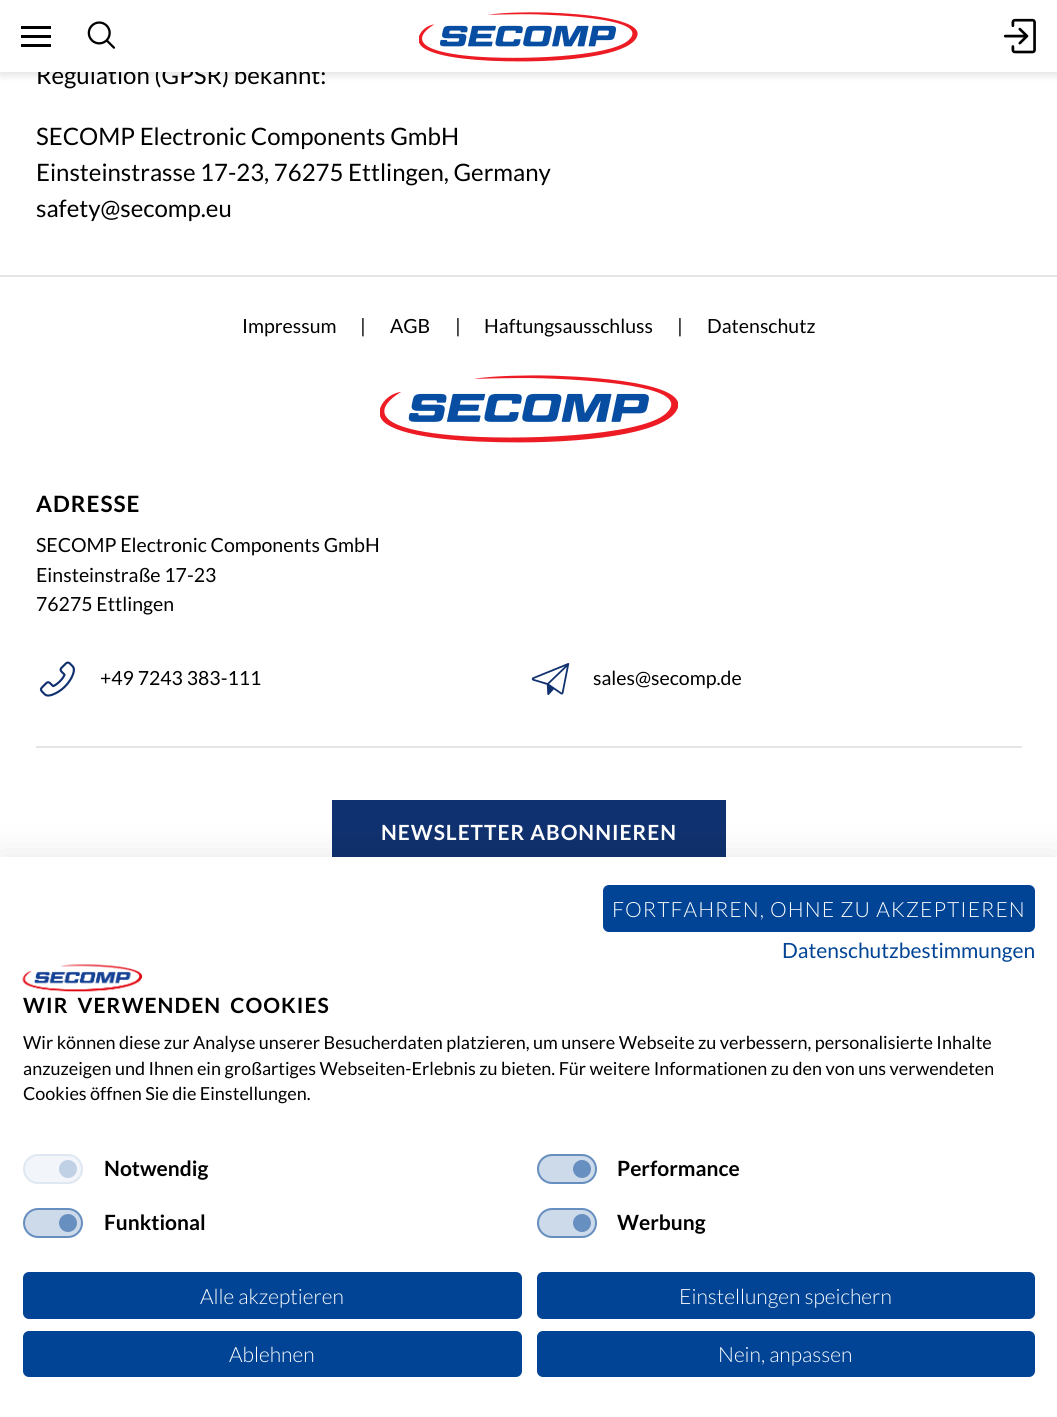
#include <cairo.h>
#include <math.h>
#include <stddef.h>


static void set_color(cairo_t *cr, unsigned color) {
    cairo_set_source_rgb(cr, (color >> 16) / 255.0, (color >> 8 & 255) / 255.0, (color & 255) / 255.0);
}

static void draw_text(cairo_t *cr, double x, double y, const char *s, const char *family, double size, int italic, int bold, unsigned color) {
    cairo_select_font_face(cr, family, italic ? CAIRO_FONT_SLANT_ITALIC : CAIRO_FONT_SLANT_NORMAL,
        bold ? CAIRO_FONT_WEIGHT_BOLD : CAIRO_FONT_WEIGHT_NORMAL);
    cairo_set_font_size(cr, size);
    set_color(cr, color);
    cairo_move_to(cr, x, y);
    cairo_show_text(cr, s);
}

static void draw_spaced(cairo_t *cr, double x, double y, const char *s, double letter, double word) {
    cairo_move_to(cr, x, y);
    while (*s) {
        char ch[5] = {0};
        int n = 0;
        do ch[n++] = *s++; while ((*s & 0xC0) == 0x80);
        cairo_show_text(cr, ch);
        cairo_rel_move_to(cr, letter + word * (*ch == ' '), 0);
    }
}

static void fill_rect(cairo_t *cr, double x, double y, double w, double h, unsigned color) {
    set_color(cr, color);
    cairo_rectangle(cr, x, y, w, h);
    cairo_fill(cr);
}

static void rounded_rect(cairo_t *cr, double x, double y, double w, double h, double r) {
    cairo_new_sub_path(cr);
    cairo_arc(cr, x + w - r, y + h - r, r, 0, M_PI / 2);
    cairo_arc(cr, x + r, y + h - r, r, M_PI / 2, M_PI);
    cairo_arc(cr, x + r, y + r, r, M_PI, 1.5 * M_PI);
    cairo_arc(cr, x + w - r, y + r, r, 1.5 * M_PI, 2 * M_PI);
    cairo_close_path(cr);
}

static void draw_shadow(cairo_t *cr, double x, double y, double w, double h, double r, double blur, double alpha) {
    cairo_push_group_with_content(cr, CAIRO_CONTENT_ALPHA);
    cairo_set_operator(cr, CAIRO_OPERATOR_SOURCE);
    for (int i = 15; i >= -15 && fmin(w, h) + blur * i / 3 > 0; i -= 2) {
        double e = blur * i / 6;
        cairo_set_source_rgba(cr, 0, 0, 0, alpha * erfc((i - 1) / 8.5) / 2);
        rounded_rect(cr, x - e, y - e, w + 2 * e, h + 2 * e, fmax(0, fmin(r + e + blur * .6, fmin(w, h) / 2 + e)));
        cairo_fill(cr);
    }
    cairo_pattern_t *soft = cairo_pop_group(cr);
    cairo_mask(cr, soft);
    cairo_pattern_destroy(soft);
}

static void draw_image(cairo_t *cr, const char *path, double x, double y, double w, double h) {
    cairo_surface_t *image = cairo_image_surface_create_from_png(path);
    cairo_save(cr);
    cairo_set_source_surface(cr, image, x, y);
    cairo_rectangle(cr, x, y, w, h);
    cairo_fill(cr);
    cairo_restore(cr);
    cairo_surface_destroy(image);
}

int main(void) {
    cairo_surface_t *surface = cairo_image_surface_create(CAIRO_FORMAT_RGB24, 1057, 1417);
    cairo_t *cr = cairo_create(surface);
    cairo_font_options_t *options = cairo_font_options_create();
    cairo_font_options_set_hint_metrics(options, CAIRO_HINT_METRICS_OFF);
    cairo_font_options_set_hint_style(options, CAIRO_HINT_STYLE_NONE);
    cairo_set_font_options(cr, options);
    cairo_set_miter_limit(cr, 4);
    set_color(cr, 0xFFFFFF);
    cairo_paint(cr);
    set_color(cr, 0x010101);
    draw_shadow(cr, 0, 3, 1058, 72, 0, 4.5, 0.12);
    draw_text(cr, 36, 84, "Regulation (GPSR) bekannt:", "Lato", 24, 0, 0, 0x000000);
    fill_rect(cr, 0, 0, 1057, 72, 0xFFFFFF);
    fill_rect(cr, 21, 26, 30, 3, 0x000000);
    fill_rect(cr, 21, 35, 30, 3, 0x000000);
    fill_rect(cr, 21, 44, 30, 3, 0x000000);
    draw_image(cr, "assets/img1.png", 87, 21, 29, 28);
    draw_image(cr, "assets/img2.png", 419, 12, 219, 50);
    draw_image(cr, "assets/img3.png", 1003, 18, 33, 36);
    draw_text(cr, 36, 145, "SECOMP Electronic Components GmbH", "Lato", 24, 0, 0, 0x000000);
    draw_text(cr, 36, 181, "Einsteinstrasse 17-23, 76275 Ettlingen, Germany", "Lato", 24, 0, 0, 0x000000);
    draw_text(cr, 36, 217, "safety@secomp.eu", "Lato", 24, 0, 0, 0x000000);
    fill_rect(cr, 0, 275, 1057, 2, 0xE5E5E5);
    draw_text(cr, 242, 333, "Impressum", "Lato", 19.5, 0, 0, 0x000000);
    draw_text(cr, 360, 333, "|", "Lato", 19.5, 0, 0, 0x000000);
    draw_text(cr, 390, 333, "AGB", "Lato", 19.5, 0, 0, 0x000000);
    draw_text(cr, 455, 333, "|", "Lato", 19.5, 0, 0, 0x000000);
    draw_text(cr, 484, 333, "Haftungsausschluss", "Lato", 19.5, 0, 0, 0x000000);
    draw_text(cr, 677, 333, "|", "Lato", 19.5, 0, 0, 0x000000);
    draw_text(cr, 707, 333, "Datenschutz", "Lato", 19.5, 0, 0, 0x000000);
    draw_image(cr, "assets/img4.png", 380, 375, 298, 68);
    cairo_select_font_face(cr, "Lato", CAIRO_FONT_SLANT_NORMAL, CAIRO_FONT_WEIGHT_BOLD);
    cairo_set_font_size(cr, 22.5);
    draw_spaced(cr, 36, 512, "ADRESSE", 1, 0);
    draw_text(cr, 36, 552, "SECOMP Electronic Components GmbH", "Lato", 19.5, 0, 0, 0x000000);
    draw_text(cr, 36, 582, "Einsteinstraße 17-23", "Lato", 19.5, 0, 0, 0x000000);
    draw_text(cr, 36, 611, "76275 Ettlingen", "Lato", 19.5, 0, 0, 0x000000);
    draw_image(cr, "assets/img5.png", 39, 661, 36, 36);
    draw_text(cr, 100, 685, "+49 7243 383-111", "Lato", 19.5, 0, 0, 0x000000);
    draw_image(cr, "assets/img6.png", 531, 663, 39, 33);
    draw_text(cr, 593, 685, "sales@secomp.de", "Lato", 19.5, 0, 0, 0x000000);
    fill_rect(cr, 36, 746, 986, 2, 0xE5E5E5);
    fill_rect(cr, 332, 800, 394, 57, 0x10316F);
    cairo_select_font_face(cr, "Lato", CAIRO_FONT_SLANT_NORMAL, CAIRO_FONT_WEIGHT_BOLD);
    cairo_set_font_size(cr, 20.9);
    set_color(cr, 0xFFFFFF);
    draw_spaced(cr, 381, 840, "NEWSLETTER ABONNIEREN", 1, 0);
    set_color(cr, 0x000000);
    draw_shadow(cr, 0, 857, 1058, 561, 0, 18, 0.1);
    fill_rect(cr, 0, 857, 1057, 560, 0xFFFFFF);
    set_color(cr, 0x014495);
    rounded_rect(cr, 604, 886, 430, 45, 5);
    cairo_fill_preserve(cr);
    cairo_stroke(cr);
    cairo_select_font_face(cr, "Lato Light", CAIRO_FONT_SLANT_NORMAL, CAIRO_FONT_WEIGHT_NORMAL);
    cairo_set_font_size(cr, 21);
    set_color(cr, 0xFFFFFF);
    draw_spaced(cr, 612, 917, "FORTFAHREN, OHNE ZU AKZEPTIEREN", 1.05, 0);
    draw_text(cr, 782, 958, "Datenschutzbestimmungen", "Lato", 21, 0, 0, 0x014495);
    draw_image(cr, "assets/img7.png", 22, 964, 121, 28);
    cairo_select_font_face(cr, "Lato", CAIRO_FONT_SLANT_NORMAL, CAIRO_FONT_WEIGHT_BOLD);
    set_color(cr, 0x000000);
    draw_spaced(cr, 23, 1013, "WIR VERWENDEN COOKIES", 1.05, 4);
    draw_text(cr, 23, 1049, "Wir können diese zur Analyse unserer Besucherdaten platzieren, um unsere Webseite zu verbessern, personalisierte Inhalte", "Lato", 18, 0, 0, 0x000000);
    draw_text(cr, 23, 1075, "anzuzeigen und Ihnen ein großartiges Webseiten-Erlebnis zu bieten. Für weitere Informationen zu den von uns verwendeten", "Lato", 18, 0, 0, 0x000000);
    draw_text(cr, 23, 1100, "Cookies öffnen Sie die Einstellungen.", "Lato", 18, 0, 0, 0x000000);
    set_color(cr, 0xF2F6FA);
    rounded_rect(cr, 23, 1154, 60, 30, 15);
    cairo_fill(cr);
    set_color(cr, 0xC0D0E5);
    cairo_arc(cr, 68, 1169, 9, 0, 2 * M_PI);
    cairo_fill(cr);
    rounded_rect(cr, 24, 1155, 58, 28, 14);
    set_color(cr, 0xDFE8F2);
    cairo_stroke(cr);
    draw_text(cr, 104, 1176, "Notwendig", "Lato", 21, 0, 1, 0x000000);
    set_color(cr, 0xCCDAEA);
    rounded_rect(cr, 537, 1154, 60, 30, 15);
    cairo_fill(cr);
    set_color(cr, 0x678FC0);
    cairo_arc(cr, 582, 1169, 9, 0, 2 * M_PI);
    cairo_fill(cr);
    rounded_rect(cr, 538, 1155, 58, 28, 14);
    cairo_set_source_rgba(cr, 0.004, 0.267, 0.584, 0.5);
    cairo_stroke(cr);
    draw_text(cr, 617, 1176, "Performance", "Lato", 21, 0, 1, 0x000000);
    set_color(cr, 0xCCDAEA);
    rounded_rect(cr, 23, 1208, 60, 30, 15);
    cairo_fill(cr);
    set_color(cr, 0x678FC0);
    cairo_arc(cr, 68, 1223, 9, 0, 2 * M_PI);
    cairo_fill(cr);
    rounded_rect(cr, 24, 1209, 58, 28, 14);
    cairo_set_source_rgba(cr, 0.004, 0.267, 0.584, 0.5);
    cairo_stroke(cr);
    draw_text(cr, 104, 1230, "Funktional", "Lato", 21, 0, 1, 0x000000);
    set_color(cr, 0xCCDAEA);
    rounded_rect(cr, 537, 1208, 60, 30, 15);
    cairo_fill(cr);
    set_color(cr, 0x678FC0);
    cairo_arc(cr, 582, 1223, 9, 0, 2 * M_PI);
    cairo_fill(cr);
    rounded_rect(cr, 538, 1209, 58, 28, 14);
    cairo_set_source_rgba(cr, 0.004, 0.267, 0.584, 0.5);
    cairo_stroke(cr);
    draw_text(cr, 617, 1230, "Werbung", "Lato", 21, 0, 1, 0x000000);
    set_color(cr, 0x014495);
    rounded_rect(cr, 24, 1273, 497, 45, 5);
    cairo_fill_preserve(cr);
    cairo_stroke(cr);
    draw_text(cr, 200, 1304, "Alle akzeptieren", "Lato Light", 21, 0, 0, 0xFFFFFF);
    set_color(cr, 0x014495);
    rounded_rect(cr, 538, 1273, 496, 45, 5);
    cairo_fill_preserve(cr);
    cairo_stroke(cr);
    draw_text(cr, 679, 1304, "Einstellungen speichern", "Lato Light", 21, 0, 0, 0xFFFFFF);
    set_color(cr, 0x014495);
    rounded_rect(cr, 24, 1332, 497, 44, 5);
    cairo_fill_preserve(cr);
    cairo_stroke(cr);
    draw_text(cr, 229, 1362, "Ablehnen", "Lato Light", 21, 0, 0, 0xFFFFFF);
    set_color(cr, 0x014495);
    rounded_rect(cr, 538, 1332, 496, 44, 5);
    cairo_fill_preserve(cr);
    cairo_stroke(cr);
    draw_text(cr, 718, 1362, "Nein, anpassen", "Lato Light", 21, 0, 0, 0xFFFFFF);
    cairo_surface_write_to_png(surface, "output.png");
    cairo_font_options_destroy(options);
    cairo_destroy(cr);
    cairo_surface_destroy(surface);
    return 0;
}
